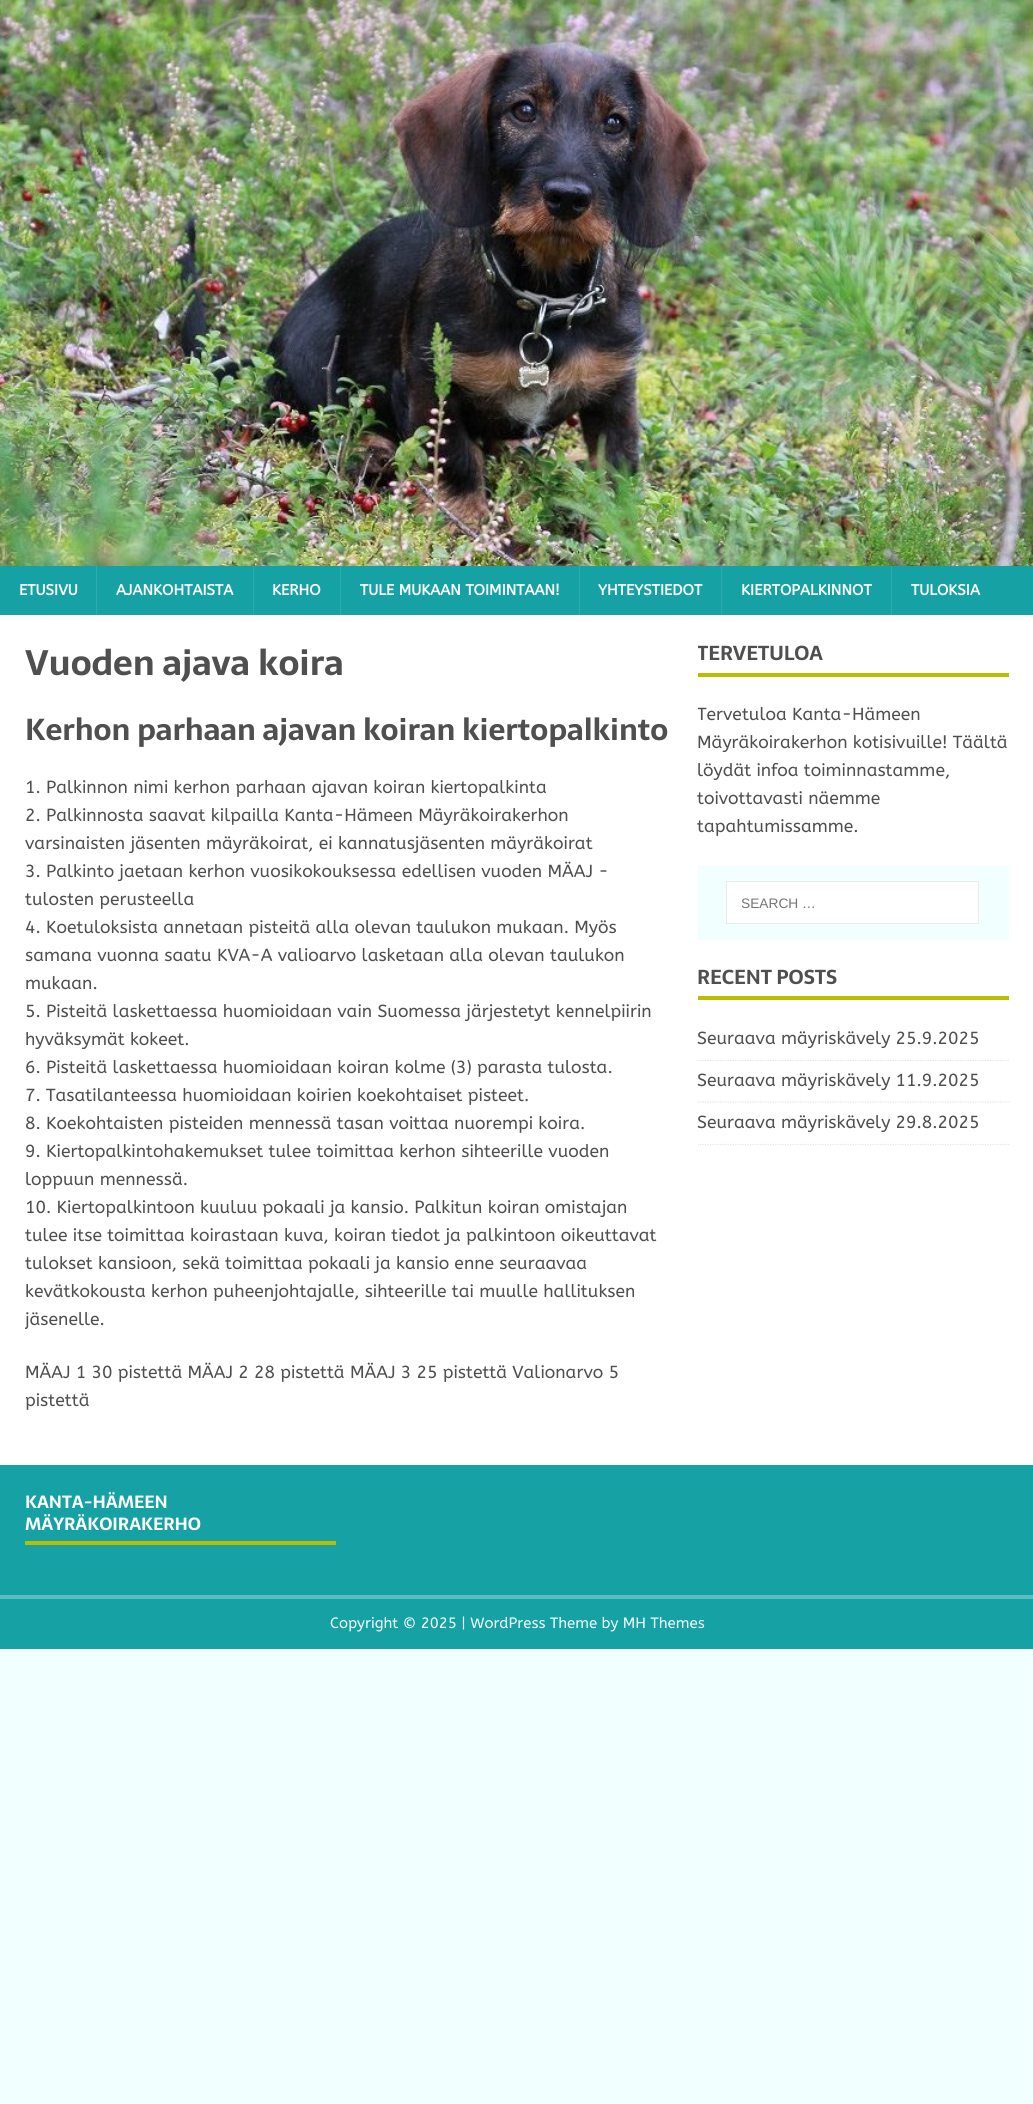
#include <cairo.h>
#include <math.h>
#include <stddef.h>


static void set_color(cairo_t *cr, unsigned color) {
    cairo_set_source_rgb(cr, (color >> 16) / 255.0, (color >> 8 & 255) / 255.0, (color & 255) / 255.0);
}

static void draw_text(cairo_t *cr, double x, double y, const char *s, const char *family, double size, int italic, int bold, unsigned color) {
    cairo_select_font_face(cr, family, italic ? CAIRO_FONT_SLANT_ITALIC : CAIRO_FONT_SLANT_NORMAL,
        bold ? CAIRO_FONT_WEIGHT_BOLD : CAIRO_FONT_WEIGHT_NORMAL);
    cairo_set_font_size(cr, size);
    set_color(cr, color);
    cairo_move_to(cr, x, y);
    cairo_show_text(cr, s);
}

static void fill_rect(cairo_t *cr, double x, double y, double w, double h, unsigned color) {
    set_color(cr, color);
    cairo_rectangle(cr, x, y, w, h);
    cairo_fill(cr);
}

static void draw_image(cairo_t *cr, const char *path, double x, double y, double w, double h) {
    cairo_surface_t *image = cairo_image_surface_create_from_png(path);
    cairo_save(cr);
    cairo_set_source_surface(cr, image, x, y);
    cairo_rectangle(cr, x, y, w, h);
    cairo_fill(cr);
    cairo_restore(cr);
    cairo_surface_destroy(image);
}

int main(void) {
    cairo_surface_t *surface = cairo_image_surface_create(CAIRO_FORMAT_RGB24, 1033, 2104);
    cairo_t *cr = cairo_create(surface);
    cairo_font_options_t *options = cairo_font_options_create();
    cairo_font_options_set_hint_metrics(options, CAIRO_HINT_METRICS_OFF);
    cairo_font_options_set_hint_style(options, CAIRO_HINT_STYLE_NONE);
    cairo_set_font_options(cr, options);
    cairo_set_miter_limit(cr, 4);
    set_color(cr, 0xF2FFFF);
    cairo_paint(cr);
    draw_image(cr, "assets/img1.png", 0, 0, 1033, 566);
    fill_rect(cr, 0, 566, 1033, 49, 0x16A1A4);
    draw_text(cr, 19, 595, "ETUSIVU", "ABeeZee", 15, 0, 1, 0xFFFFFF);
    fill_rect(cr, 96, 566, 1, 49, 0x2DAAAD);
    draw_text(cr, 116, 595, "AJANKOHTAISTA", "ABeeZee", 15, 0, 1, 0xFFFFFF);
    fill_rect(cr, 253, 566, 1, 49, 0x2DAAAD);
    draw_text(cr, 272, 595, "KERHO", "ABeeZee", 15, 0, 1, 0xFFFFFF);
    fill_rect(cr, 340, 566, 1, 49, 0x2DAAAD);
    draw_text(cr, 360, 595, "TULE MUKAAN TOIMINTAAN!", "ABeeZee", 15, 0, 1, 0xFFFFFF);
    fill_rect(cr, 579, 566, 1, 49, 0x2DAAAD);
    draw_text(cr, 598, 595, "YHTEYSTIEDOT", "ABeeZee", 15, 0, 1, 0xFFFFFF);
    fill_rect(cr, 721, 566, 1, 49, 0x2DAAAD);
    draw_text(cr, 741, 595, "KIERTOPALKINNOT", "ABeeZee", 15, 0, 1, 0xFFFFFF);
    fill_rect(cr, 891, 566, 1, 49, 0x2DAAAD);
    draw_text(cr, 911, 595, "TULOKSIA", "ABeeZee", 15, 0, 1, 0xFFFFFF);
    fill_rect(cr, 0, 615, 1033, 850, 0xFFFFFF);
    draw_text(cr, 25, 675, "Vuoden ajava koira", "Sarala", 35, 0, 1, 0x4F4F4F);
    draw_text(cr, 25, 740, "Kerhon parhaan ajavan koiran kiertopalkinto", "Sarala", 30, 0, 1, 0x4F4F4F);
    draw_text(cr, 25, 793, "1. Palkinnon nimi kerhon parhaan ajavan koiran kiertopalkinta", "ABeeZee", 17.5, 0, 0, 0x4F4F4F);
    draw_text(cr, 25, 821, "2. Palkinnosta saavat kilpailla Kanta-Hämeen Mäyräkoirakerhon", "ABeeZee", 17.5, 0, 0, 0x4F4F4F);
    draw_text(cr, 25, 849, "varsinaisten jäsenten mäyräkoirat, ei kannatusjäsenten mäyräkoirat", "ABeeZee", 17.5, 0, 0, 0x4F4F4F);
    draw_text(cr, 25, 877, "3. Palkinto jaetaan kerhon vuosikokouksessa edellisen vuoden MÄAJ -", "ABeeZee", 17.5, 0, 0, 0x4F4F4F);
    draw_text(cr, 25, 905, "tulosten perusteella", "ABeeZee", 17.5, 0, 0, 0x4F4F4F);
    draw_text(cr, 25, 933, "4. Koetuloksista annetaan pisteitä alla olevan taulukon mukaan. Myös", "ABeeZee", 17.5, 0, 0, 0x4F4F4F);
    draw_text(cr, 25, 961, "samana vuonna saatu KVA-A valioarvo lasketaan alla olevan taulukon", "ABeeZee", 17.5, 0, 0, 0x4F4F4F);
    draw_text(cr, 25, 989, "mukaan.", "ABeeZee", 17.5, 0, 0, 0x4F4F4F);
    draw_text(cr, 25, 1017, "5. Pisteitä laskettaessa huomioidaan vain Suomessa järjestetyt kennelpiirin", "ABeeZee", 17.5, 0, 0, 0x4F4F4F);
    draw_text(cr, 25, 1045, "hyväksymät kokeet.", "ABeeZee", 17.5, 0, 0, 0x4F4F4F);
    draw_text(cr, 25, 1073, "6. Pisteitä laskettaessa huomioidaan koiran kolme (3) parasta tulosta.", "ABeeZee", 17.5, 0, 0, 0x4F4F4F);
    draw_text(cr, 25, 1101, "7. Tasatilanteessa huomioidaan koirien koekohtaiset pisteet.", "ABeeZee", 17.5, 0, 0, 0x4F4F4F);
    draw_text(cr, 25, 1129, "8. Koekohtaisten pisteiden mennessä tasan voittaa nuorempi koira.", "ABeeZee", 17.5, 0, 0, 0x4F4F4F);
    draw_text(cr, 25, 1157, "9. Kiertopalkintohakemukset tulee toimittaa kerhon sihteerille vuoden", "ABeeZee", 17.5, 0, 0, 0x4F4F4F);
    draw_text(cr, 25, 1185, "loppuun mennessä.", "ABeeZee", 17.5, 0, 0, 0x4F4F4F);
    draw_text(cr, 25, 1213, "10. Kiertopalkintoon kuuluu pokaali ja kansio. Palkitun koiran omistajan", "ABeeZee", 17.5, 0, 0, 0x4F4F4F);
    draw_text(cr, 25, 1241, "tulee itse toimittaa koirastaan kuva, koiran tiedot ja palkintoon oikeuttavat", "ABeeZee", 17.5, 0, 0, 0x4F4F4F);
    draw_text(cr, 25, 1269, "tulokset kansioon, sekä toimittaa pokaali ja kansio enne seuraavaa", "ABeeZee", 17.5, 0, 0, 0x4F4F4F);
    draw_text(cr, 25, 1297, "kevätkokousta kerhon puheenjohtajalle, sihteerille tai muulle hallituksen", "ABeeZee", 17.5, 0, 0, 0x4F4F4F);
    cairo_save(cr);
    cairo_rectangle(cr, 25, 640, 648, 800);
    cairo_clip(cr);
    draw_text(cr, 25, 1325, "jäsenelle.", "ABeeZee", 17.5, 0, 0, 0x4F4F4F);
    cairo_restore(cr);
    draw_text(cr, 25, 1378, "MÄAJ 1 30 pistettä MÄAJ 2 28 pistettä MÄAJ 3 25 pistettä Valionarvo 5", "ABeeZee", 17.5, 0, 0, 0x4F4F4F);
    draw_text(cr, 25, 1406, "pistettä", "ABeeZee", 17.5, 0, 0, 0x4F4F4F);
    fill_rect(cr, 698, 673, 311, 4, 0xBBBD00);
    cairo_save(cr);
    cairo_rectangle(cr, 698, 640, 311, 201);
    cairo_clip(cr);
    draw_text(cr, 697, 660, "TERVETULOA", "Sarala", 20, 0, 1, 0x4F4F4F);
    draw_text(cr, 697, 720, "Tervetuloa Kanta-Hämeen", "ABeeZee", 17.5, 0, 0, 0x4F4F4F);
    cairo_restore(cr);
    draw_text(cr, 697, 748, "Mäyräkoirakerhon kotisivuille! Täältä", "ABeeZee", 17.5, 0, 0, 0x4F4F4F);
    draw_text(cr, 697, 776, "löydät infoa toiminnastamme,", "ABeeZee", 17.5, 0, 0, 0x4F4F4F);
    draw_text(cr, 697, 804, "toivottavasti näemme", "ABeeZee", 17.5, 0, 0, 0x4F4F4F);
    draw_text(cr, 697, 832, "tapahtumissamme.", "ABeeZee", 17.5, 0, 0, 0x4F4F4F);
    fill_rect(cr, 698, 866, 311, 74, 0xF2FFFF);
    set_color(cr, 0xFFFFFF);
    cairo_rectangle(cr, 726.5, 881.5, 252, 42);
    cairo_fill_preserve(cr);
    set_color(cr, 0xEBEBEB);
    cairo_set_line_width(cr, 1);
    cairo_stroke(cr);
    draw_text(cr, 741, 908, "SEARCH …", "Liberation Sans", 13.75, 0, 0, 0x757575);
    fill_rect(cr, 698, 996, 311, 4, 0xBBBD00);
    draw_text(cr, 697, 984, "RECENT POSTS", "Sarala", 20, 0, 1, 0x4F4F4F);
    cairo_new_path(cr);
    cairo_move_to(cr, 697.5, 1060.5);
    cairo_line_to(cr, 1009, 1060.5);
    set_color(cr, 0xE5E5E5);
    cairo_set_line_width(cr, 1.2);
    cairo_set_dash(cr, (double[]){1.25, 1.25}, 2, 0);
    cairo_stroke(cr);
    draw_text(cr, 697, 1044, "Seuraava mäyriskävely 25.9.2025", "ABeeZee", 17.5, 0, 0, 0x4F4F4F);
    cairo_new_path(cr);
    cairo_move_to(cr, 697.5, 1102);
    cairo_line_to(cr, 1009, 1102);
    set_color(cr, 0xE5E5E5);
    cairo_stroke(cr);
    draw_text(cr, 697, 1086, "Seuraava mäyriskävely 11.9.2025", "ABeeZee", 17.5, 0, 0, 0x4F4F4F);
    cairo_save(cr);
    cairo_rectangle(cr, 698, 965, 311, 180);
    cairo_clip(cr);
    cairo_new_path(cr);
    cairo_move_to(cr, 697.5, 1144.5);
    cairo_line_to(cr, 1009, 1144.5);
    set_color(cr, 0xE5E5E5);
    cairo_stroke(cr);
    cairo_restore(cr);
    draw_text(cr, 697, 1128, "Seuraava mäyriskävely 29.8.2025", "ABeeZee", 17.5, 0, 0, 0x4F4F4F);
    fill_rect(cr, 0, 1465, 1033, 130, 0x16A1A4);
    fill_rect(cr, 25, 1541, 311, 4, 0xBBBD00);
    draw_text(cr, 25, 1508, "KANTA-HÄMEEN", "Sarala", 17.5, 0, 1, 0xFFFFFF);
    draw_text(cr, 25, 1530, "MÄYRÄKOIRAKERHO", "Sarala", 17.5, 0, 1, 0xFFFFFF);
    fill_rect(cr, 0, 1599, 1033, 50, 0x16A1A4);
    fill_rect(cr, 0, 1595, 1033, 4, 0x5CBDBF);
    draw_text(cr, 330, 1628, "Copyright © 2025 | WordPress Theme by MH Themes", "ABeeZee", 15, 0, 0, 0xF2FFFF);
    cairo_surface_write_to_png(surface, "output.png");
    cairo_font_options_destroy(options);
    cairo_destroy(cr);
    cairo_surface_destroy(surface);
    return 0;
}
